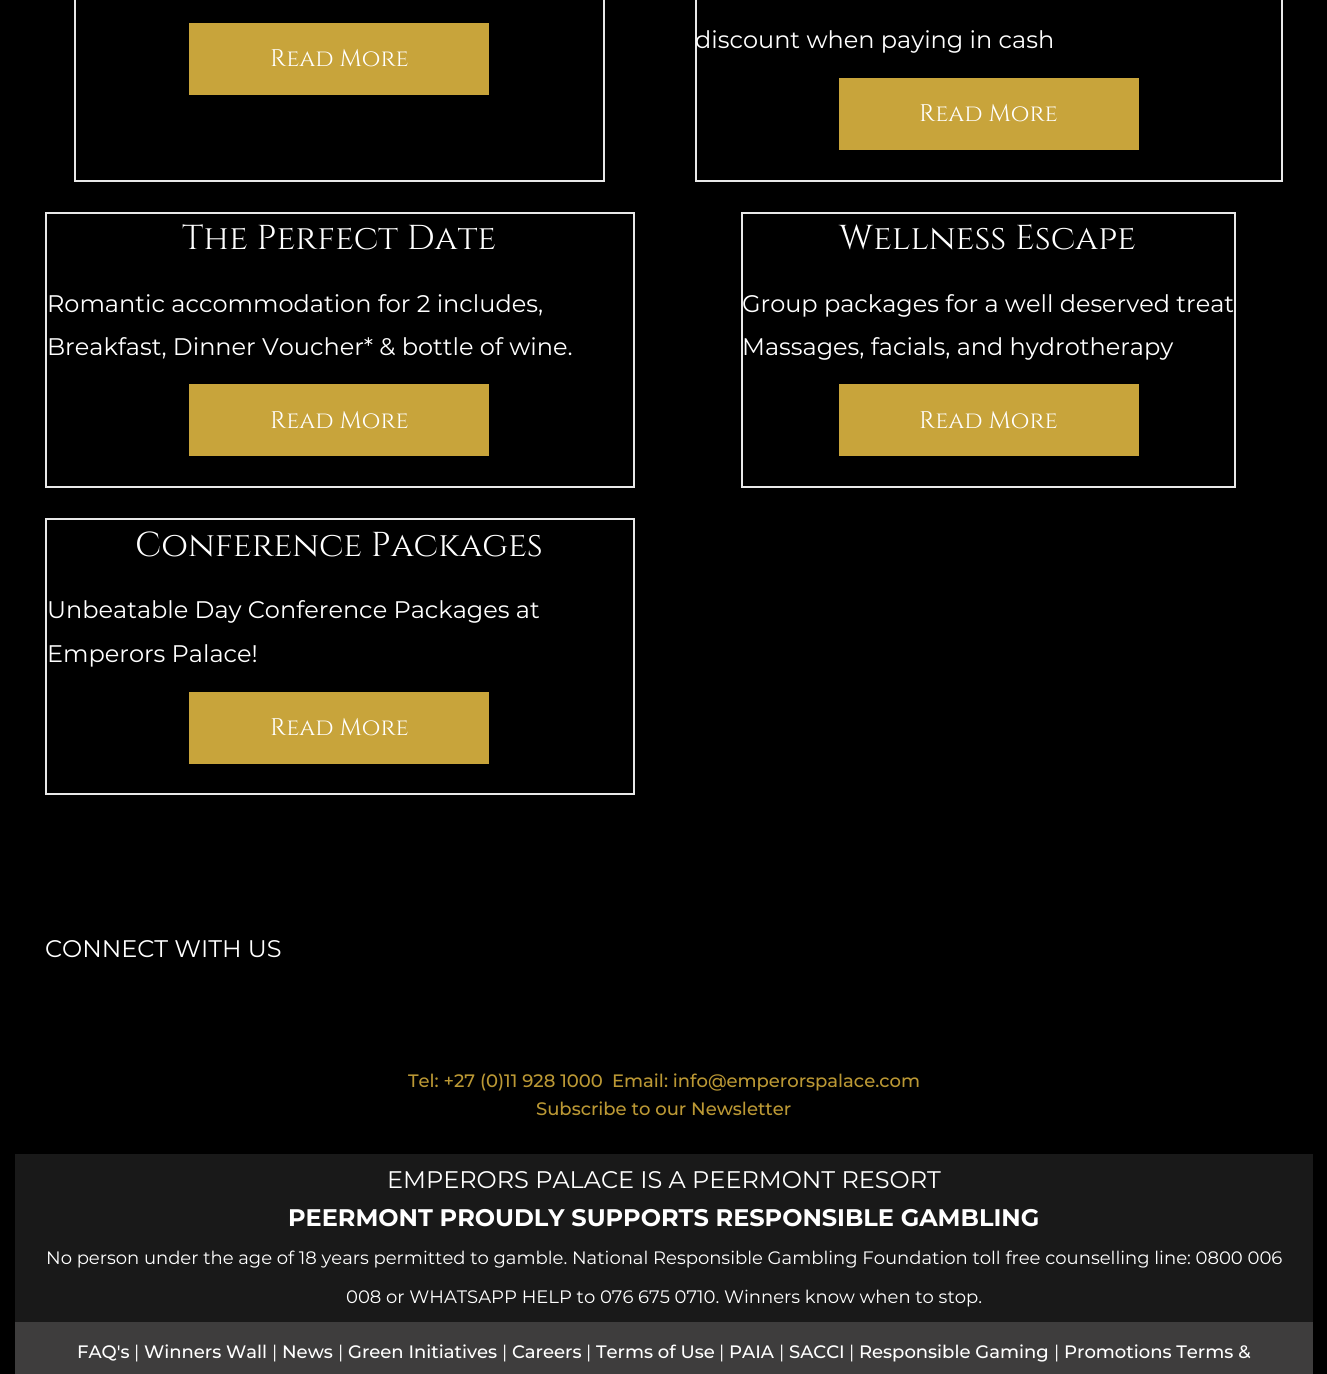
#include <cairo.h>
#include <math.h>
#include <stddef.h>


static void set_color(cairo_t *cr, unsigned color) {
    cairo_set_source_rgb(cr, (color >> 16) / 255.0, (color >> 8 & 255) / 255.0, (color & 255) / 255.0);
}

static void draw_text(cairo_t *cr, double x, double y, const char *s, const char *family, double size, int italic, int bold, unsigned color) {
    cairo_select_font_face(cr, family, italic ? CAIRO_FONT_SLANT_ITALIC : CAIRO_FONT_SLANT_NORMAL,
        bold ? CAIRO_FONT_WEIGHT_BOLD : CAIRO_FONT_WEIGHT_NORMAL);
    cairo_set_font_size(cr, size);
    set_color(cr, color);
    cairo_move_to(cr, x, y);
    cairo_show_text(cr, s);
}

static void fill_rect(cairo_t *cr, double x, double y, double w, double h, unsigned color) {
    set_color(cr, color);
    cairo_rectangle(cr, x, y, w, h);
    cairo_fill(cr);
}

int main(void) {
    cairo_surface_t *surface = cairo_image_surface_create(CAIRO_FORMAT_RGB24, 1327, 1374);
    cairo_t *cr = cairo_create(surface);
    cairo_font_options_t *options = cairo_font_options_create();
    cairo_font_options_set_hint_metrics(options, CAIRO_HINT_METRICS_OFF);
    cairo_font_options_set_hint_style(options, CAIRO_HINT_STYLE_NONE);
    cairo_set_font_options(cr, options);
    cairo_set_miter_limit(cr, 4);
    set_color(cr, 0x000000);
    cairo_paint(cr);
    cairo_rectangle(cr, 75, -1, 529, 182);
    set_color(cr, 0xE9E9E9);
    cairo_stroke(cr);
    fill_rect(cr, 189, 23, 300, 72, 0xC8A43B);
    draw_text(cr, 270, 66, "Read More", "Cinzel", 24, 0, 0, 0xFFFFFF);
    cairo_rectangle(cr, 696, -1, 586, 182);
    set_color(cr, 0xE9E9E9);
    cairo_stroke(cr);
    draw_text(cr, 695, 48, "discount when paying in cash", "Montserrat", 24, 0, 0, 0xFFFFFF);
    fill_rect(cr, 839, 78, 300, 72, 0xC8A43B);
    draw_text(cr, 919, 121, "Read More", "Cinzel", 24, 0, 0, 0xFFFFFF);
    cairo_rectangle(cr, 46, 213, 588, 274);
    set_color(cr, 0xE9E9E9);
    cairo_stroke(cr);
    draw_text(cr, 182, 249, "The Perfect Date", "Cinzel", 34.5, 0, 0, 0xFFFFFF);
    draw_text(cr, 47, 312, "Romantic accommodation for 2 includes,", "Montserrat", 24, 0, 0, 0xFFFFFF);
    draw_text(cr, 47, 355, "Breakfast, Dinner Voucher* & bottle of wine.", "Montserrat", 24, 0, 0, 0xFFFFFF);
    fill_rect(cr, 189, 384, 300, 72, 0xC8A43B);
    draw_text(cr, 270, 428, "Read More", "Cinzel", 24, 0, 0, 0xFFFFFF);
    cairo_rectangle(cr, 742, 213, 493, 274);
    set_color(cr, 0xE9E9E9);
    cairo_stroke(cr);
    draw_text(cr, 839, 249, "Wellness Escape", "Cinzel", 34.5, 0, 0, 0xFFFFFF);
    draw_text(cr, 742, 312, "Group packages for a well deserved treat", "Montserrat", 24, 0, 0, 0xFFFFFF);
    draw_text(cr, 742, 355, "Massages, facials, and hydrotherapy", "Montserrat", 24, 0, 0, 0xFFFFFF);
    fill_rect(cr, 839, 384, 300, 72, 0xC8A43B);
    draw_text(cr, 919, 428, "Read More", "Cinzel", 24, 0, 0, 0xFFFFFF);
    cairo_rectangle(cr, 46, 519, 588, 275);
    set_color(cr, 0xE9E9E9);
    cairo_stroke(cr);
    draw_text(cr, 135, 556, "Conference Packages", "Cinzel", 34.5, 0, 0, 0xFFFFFF);
    draw_text(cr, 47, 618, "Unbeatable Day Conference Packages at", "Montserrat", 24, 0, 0, 0xFFFFFF);
    draw_text(cr, 47, 662, "Emperors Palace!", "Montserrat", 24, 0, 0, 0xFFFFFF);
    fill_rect(cr, 189, 692, 300, 72, 0xC8A43B);
    draw_text(cr, 270, 735, "Read More", "Cinzel", 24, 0, 0, 0xFFFFFF);
    draw_text(cr, 45, 957, "CONNECT WITH US", "Montserrat", 24, 0, 0, 0xFFFFFF);
    draw_text(cr, 408, 1087, "Tel: +27 (0)11 928 1000", "Montserrat Medium", 18, 0, 0, 0xBB9834);
    draw_text(cr, 612, 1087, "Email: info@emperorspalace.com", "Montserrat Medium", 18, 0, 0, 0xBB9834);
    draw_text(cr, 536, 1115, "Subscribe to our Newsletter", "Montserrat Medium", 18, 0, 0, 0xBB9834);
    fill_rect(cr, 15, 1154, 1298, 168, 0x191919);
    draw_text(cr, 387, 1188, "EMPERORS PALACE IS A PEERMONT RESORT", "Montserrat", 24, 0, 0, 0xFFFFFF);
    draw_text(cr, 288, 1226, "PEERMONT PROUDLY SUPPORTS RESPONSIBLE GAMBLING", "Montserrat", 24, 0, 1, 0xFFFFFF);
    draw_text(cr, 46, 1264, "No person under the age of 18 years permitted to gamble. National Responsible Gambling Foundation toll free counselling line: 0800 006", "Montserrat", 18, 0, 0, 0xFFFFFF);
    draw_text(cr, 346, 1303, "008 or WHATSAPP HELP to 076 675 0710. Winners know when to stop.", "Montserrat", 18, 0, 0, 0xFFFFFF);
    fill_rect(cr, 15, 1322, 1298, 52, 0x3E3D3D);
    draw_text(cr, 77, 1358, "FAQ's", "Montserrat Medium", 18, 0, 0, 0xFFFFFF);
    draw_text(cr, 134, 1358, "|", "Montserrat", 18, 0, 0, 0xFFFFFF);
    draw_text(cr, 144, 1358, "Winners Wall", "Montserrat Medium", 18, 0, 0, 0xFFFFFF);
    draw_text(cr, 272, 1358, "|", "Montserrat", 18, 0, 0, 0xFFFFFF);
    draw_text(cr, 282, 1358, "News", "Montserrat Medium", 18, 0, 0, 0xFFFFFF);
    draw_text(cr, 338, 1358, "|", "Montserrat", 18, 0, 0, 0xFFFFFF);
    draw_text(cr, 348, 1358, "Green Initiatives", "Montserrat Medium", 18, 0, 0, 0xFFFFFF);
    draw_text(cr, 502, 1358, "|", "Montserrat", 18, 0, 0, 0xFFFFFF);
    draw_text(cr, 512, 1358, "Careers", "Montserrat Medium", 18, 0, 0, 0xFFFFFF);
    draw_text(cr, 586, 1358, "|", "Montserrat", 18, 0, 0, 0xFFFFFF);
    draw_text(cr, 596, 1358, "Terms of Use", "Montserrat Medium", 18, 0, 0, 0xFFFFFF);
    draw_text(cr, 719, 1358, "|", "Montserrat", 18, 0, 0, 0xFFFFFF);
    draw_text(cr, 729, 1358, "PAIA", "Montserrat Medium", 18, 0, 0, 0xFFFFFF);
    draw_text(cr, 779, 1358, "|", "Montserrat", 18, 0, 0, 0xFFFFFF);
    draw_text(cr, 789, 1358, "SACCI", "Montserrat Medium", 18, 0, 0, 0xFFFFFF);
    draw_text(cr, 849, 1358, "|", "Montserrat", 18, 0, 0, 0xFFFFFF);
    draw_text(cr, 859, 1358, "Responsible Gaming", "Montserrat Medium", 18, 0, 0, 0xFFFFFF);
    draw_text(cr, 1054, 1358, "|", "Montserrat", 18, 0, 0, 0xFFFFFF);
    draw_text(cr, 1064, 1358, "Promotions Terms &", "Montserrat Medium", 18, 0, 0, 0xFFFFFF);
    cairo_surface_write_to_png(surface, "output.png");
    cairo_font_options_destroy(options);
    cairo_destroy(cr);
    cairo_surface_destroy(surface);
    return 0;
}
